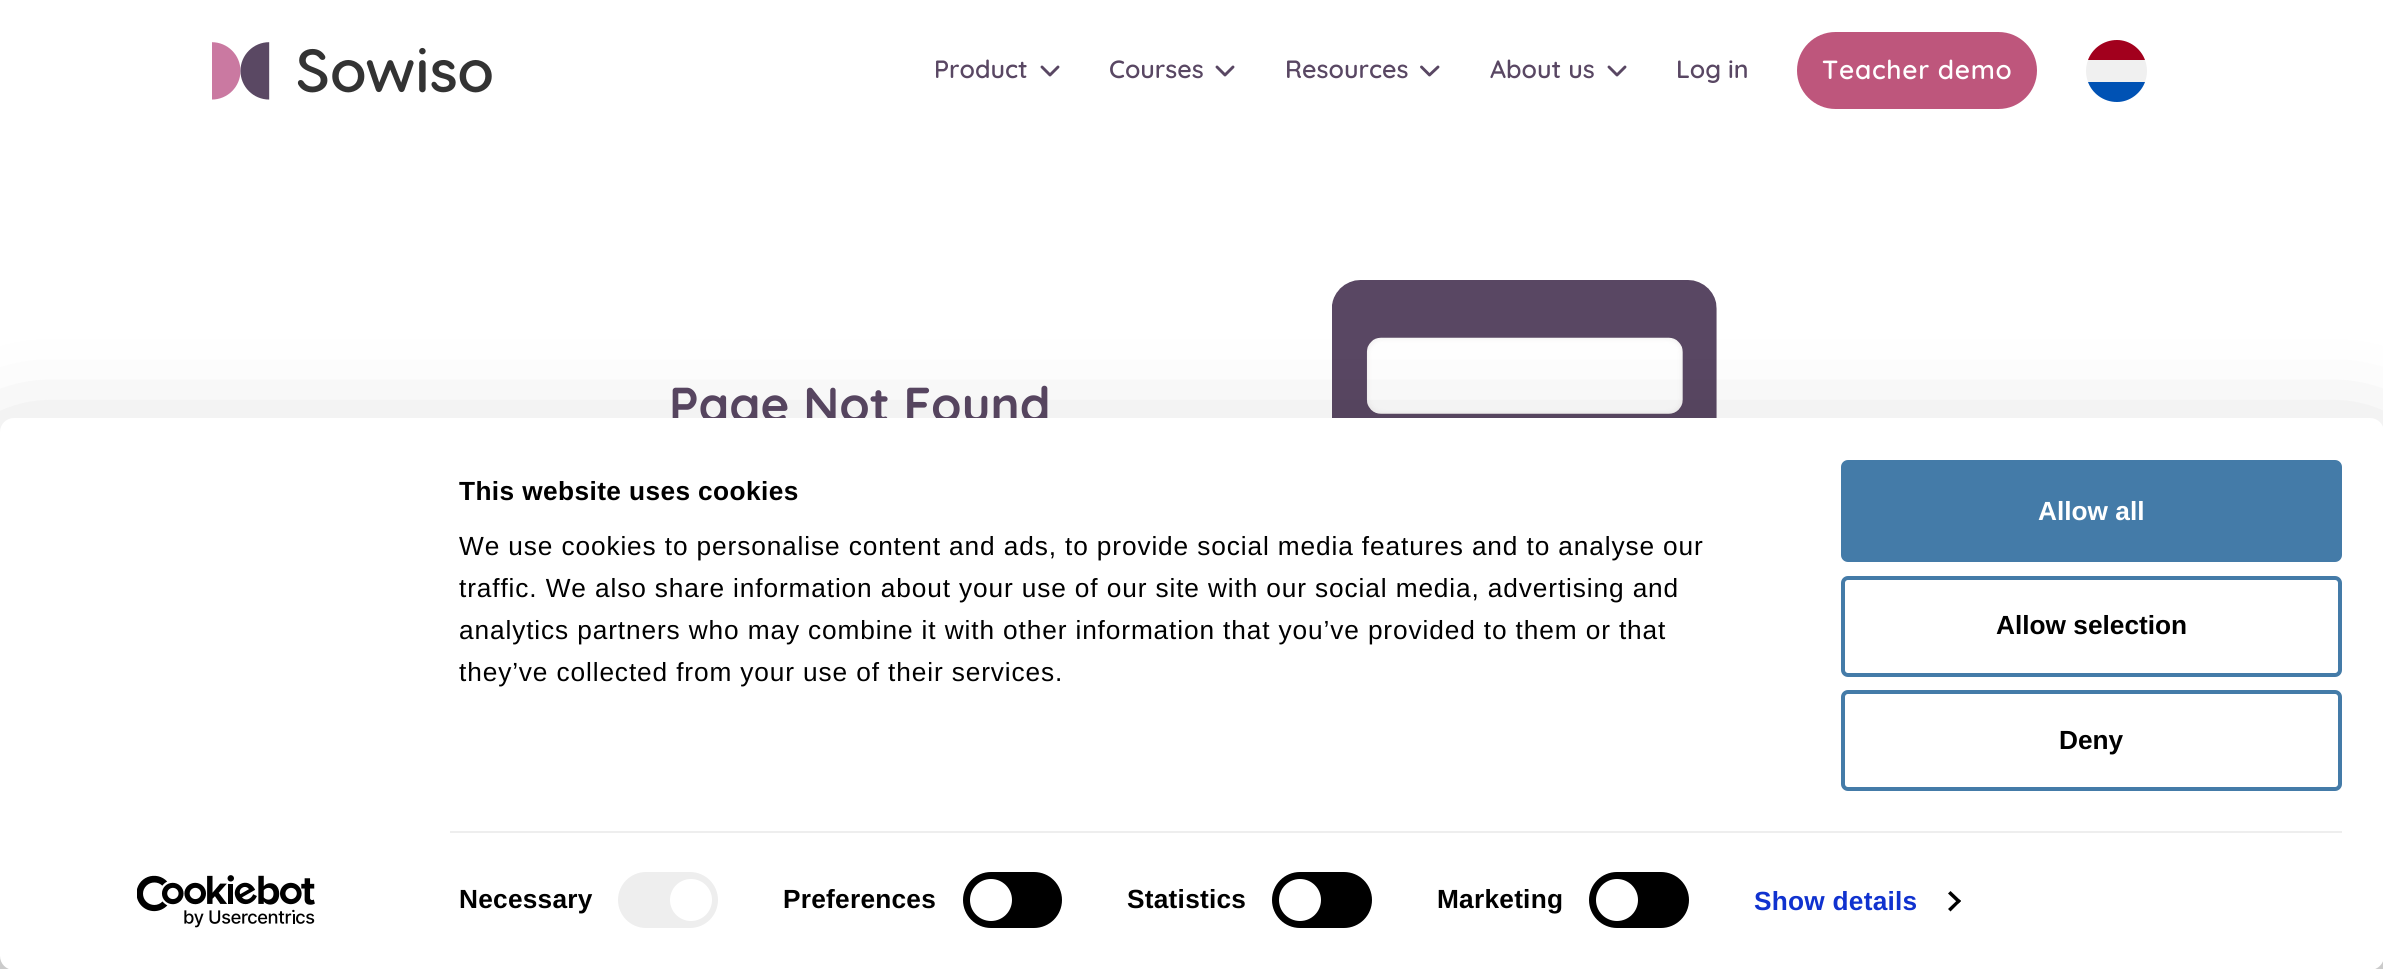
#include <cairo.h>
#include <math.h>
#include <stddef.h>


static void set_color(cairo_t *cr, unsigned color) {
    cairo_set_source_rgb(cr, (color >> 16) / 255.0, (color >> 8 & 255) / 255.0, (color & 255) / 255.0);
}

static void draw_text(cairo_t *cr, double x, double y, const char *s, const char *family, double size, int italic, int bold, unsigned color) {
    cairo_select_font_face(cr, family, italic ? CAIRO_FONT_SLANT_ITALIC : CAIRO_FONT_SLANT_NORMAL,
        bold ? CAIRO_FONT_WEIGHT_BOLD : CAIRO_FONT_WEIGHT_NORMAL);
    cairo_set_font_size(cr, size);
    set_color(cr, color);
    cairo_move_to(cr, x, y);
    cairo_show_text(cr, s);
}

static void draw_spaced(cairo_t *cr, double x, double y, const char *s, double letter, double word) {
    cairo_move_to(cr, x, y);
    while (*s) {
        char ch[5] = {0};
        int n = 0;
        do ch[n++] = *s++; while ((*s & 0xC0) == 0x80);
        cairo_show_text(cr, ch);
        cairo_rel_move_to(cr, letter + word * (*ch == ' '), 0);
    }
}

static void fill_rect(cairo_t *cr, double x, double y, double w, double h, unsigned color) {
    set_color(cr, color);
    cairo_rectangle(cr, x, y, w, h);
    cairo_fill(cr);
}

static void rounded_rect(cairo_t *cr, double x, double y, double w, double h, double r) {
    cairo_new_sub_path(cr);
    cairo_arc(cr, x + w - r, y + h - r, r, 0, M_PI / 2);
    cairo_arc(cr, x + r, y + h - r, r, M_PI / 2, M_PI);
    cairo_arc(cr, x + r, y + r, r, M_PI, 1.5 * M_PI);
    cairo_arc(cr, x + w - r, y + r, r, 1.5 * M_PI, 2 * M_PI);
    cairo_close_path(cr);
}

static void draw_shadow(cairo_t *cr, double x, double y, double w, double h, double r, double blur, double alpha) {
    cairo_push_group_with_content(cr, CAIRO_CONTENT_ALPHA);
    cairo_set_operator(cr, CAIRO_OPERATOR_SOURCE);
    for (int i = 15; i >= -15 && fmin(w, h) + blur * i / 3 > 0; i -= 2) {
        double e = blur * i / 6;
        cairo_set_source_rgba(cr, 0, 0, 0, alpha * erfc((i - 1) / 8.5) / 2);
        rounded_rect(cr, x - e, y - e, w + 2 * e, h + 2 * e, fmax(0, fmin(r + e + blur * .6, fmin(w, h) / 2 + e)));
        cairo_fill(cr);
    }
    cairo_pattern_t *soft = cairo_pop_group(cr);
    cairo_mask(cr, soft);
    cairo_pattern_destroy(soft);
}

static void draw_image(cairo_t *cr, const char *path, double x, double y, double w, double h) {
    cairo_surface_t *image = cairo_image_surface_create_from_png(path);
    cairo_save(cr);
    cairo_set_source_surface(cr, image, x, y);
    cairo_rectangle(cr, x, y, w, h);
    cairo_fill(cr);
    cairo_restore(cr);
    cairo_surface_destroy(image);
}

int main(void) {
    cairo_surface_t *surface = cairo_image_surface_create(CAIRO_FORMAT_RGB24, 2383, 969);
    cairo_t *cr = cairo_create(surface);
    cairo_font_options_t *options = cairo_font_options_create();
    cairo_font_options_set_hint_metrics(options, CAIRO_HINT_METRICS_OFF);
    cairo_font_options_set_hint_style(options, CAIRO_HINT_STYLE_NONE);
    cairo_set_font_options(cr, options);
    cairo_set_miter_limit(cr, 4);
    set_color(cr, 0xFFFFFF);
    cairo_paint(cr);
    draw_image(cr, "assets/img1.png", 212, 42, 280, 58);
    draw_text(cr, 934, 78, "Product", "Quicksand SemiBold", 25, 0, 0, 0x594763);
    cairo_new_path(cr);
    cairo_move_to(cr, 1042, 67);
    cairo_line_to(cr, 1050, 75);
    cairo_move_to(cr, 1058, 67);
    cairo_line_to(cr, 1050, 75);
    cairo_set_line_width(cr, 2.9);
    cairo_set_line_cap(cr, CAIRO_LINE_CAP_ROUND);
    cairo_stroke(cr);
    draw_text(cr, 1109, 78, "Courses", "Quicksand SemiBold", 25, 0, 0, 0x594763);
    cairo_new_path(cr);
    cairo_move_to(cr, 1217, 67);
    cairo_line_to(cr, 1225, 75);
    cairo_move_to(cr, 1233, 67);
    cairo_line_to(cr, 1225, 75);
    cairo_stroke(cr);
    draw_text(cr, 1285, 78, "Resources", "Quicksand SemiBold", 25, 0, 0, 0x594763);
    cairo_new_path(cr);
    cairo_move_to(cr, 1421.5, 67);
    cairo_line_to(cr, 1429.5, 75);
    cairo_move_to(cr, 1438, 67);
    cairo_line_to(cr, 1429.5, 75);
    cairo_stroke(cr);
    draw_text(cr, 1490, 78, "About us", "Quicksand SemiBold", 25, 0, 0, 0x594763);
    cairo_new_path(cr);
    cairo_move_to(cr, 1609, 67);
    cairo_line_to(cr, 1617, 75);
    cairo_move_to(cr, 1625, 67);
    cairo_line_to(cr, 1617, 75);
    cairo_stroke(cr);
    draw_text(cr, 1676, 78, "Log in", "Quicksand SemiBold", 25, 0, 0, 0x594763);
    set_color(cr, 0xBE567C);
    rounded_rect(cr, 1797, 32, 240, 77, 38.5);
    cairo_fill(cr);
    cairo_set_font_size(cr, 26.25);
    set_color(cr, 0xFFFFFF);
    draw_spaced(cr, 1822, 79, "Teacher demo", 0.7, 0);
    set_color(cr, 0xF0F0F0);
    cairo_new_path(cr);
    cairo_arc(cr, 2116.5, 71, 30.5, 0, 2 * M_PI);
    cairo_fill(cr);
    set_color(cr, 0xA2001D);
    cairo_new_path(cr);
    cairo_move_to(cr, 2117, 40);
    cairo_curve_to(cr, 2103, 40, 2092, 49, 2088, 60);
    cairo_line_to(cr, 2145, 60);
    cairo_curve_to(cr, 2141, 49, 2130, 40, 2117, 40);
    cairo_close_path(cr);
    cairo_fill(cr);
    set_color(cr, 0x0052B4);
    cairo_new_path(cr);
    cairo_move_to(cr, 2117, 102);
    cairo_curve_to(cr, 2130, 102, 2141, 93, 2145, 82);
    cairo_line_to(cr, 2088, 82);
    cairo_curve_to(cr, 2092, 93, 2103, 102, 2117, 102);
    cairo_close_path(cr);
    cairo_fill(cr);
    draw_text(cr, 669, 422, "Page Not Found", "Quicksand", 49, 0, 1, 0x594763);
    draw_image(cr, "assets/img2.png", 1332, 280, 385, 138);
    fill_rect(cr, 0, 956, 2383, 13, 0xEEEEEE);
    set_color(cr, 0x000000);
    draw_shadow(cr, 0, 471, 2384, 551, 14, 61, 0.3);
    set_color(cr, 0xFFFFFF);
    rounded_rect(cr, 0, 418, 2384, 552, 14);
    cairo_fill(cr);
    cairo_select_font_face(cr, "Liberation Sans", CAIRO_FONT_SLANT_NORMAL, CAIRO_FONT_WEIGHT_BOLD);
    cairo_set_font_size(cr, 26.25);
    set_color(cr, 0x000000);
    draw_spaced(cr, 459, 500, "This website uses cookies", 0.4, 0);
    cairo_select_font_face(cr, "Liberation Sans", CAIRO_FONT_SLANT_NORMAL, CAIRO_FONT_WEIGHT_NORMAL);
    draw_spaced(cr, 459, 555, "We use cookies to personalise content and ads, to provide social media features and to analyse our", 0.88, 0);
    draw_spaced(cr, 459, 597, "traffic. We also share information about your use of our site with our social media, advertising and", 0.88, 0);
    draw_spaced(cr, 459, 639, "analytics partners who may combine it with other information that you’ve provided to them or that", 0.88, 0);
    draw_spaced(cr, 459, 681, "they’ve collected from your use of their services.", 0.88, 0);
    fill_rect(cr, 450, 831, 1892, 2, 0xEEEEEE);
    cairo_select_font_face(cr, "Liberation Sans", CAIRO_FONT_SLANT_NORMAL, CAIRO_FONT_WEIGHT_BOLD);
    set_color(cr, 0x000000);
    draw_spaced(cr, 459, 908, "Necessary", 0.25, 0);
    set_color(cr, 0xEEEEEE);
    rounded_rect(cr, 618, 872, 100, 56, 28);
    cairo_fill(cr);
    set_color(cr, 0xFFFFFF);
    cairo_arc(cr, 691, 900, 21, 0, 2 * M_PI);
    cairo_fill(cr);
    set_color(cr, 0x000000);
    draw_spaced(cr, 783, 908, "Preferences", 0.25, 0);
    rounded_rect(cr, 963, 872, 99, 56, 28);
    cairo_fill(cr);
    set_color(cr, 0xFFFFFF);
    cairo_arc(cr, 991, 900, 21, 0, 2 * M_PI);
    cairo_fill(cr);
    set_color(cr, 0x000000);
    draw_spaced(cr, 1127, 908, "Statistics", 0.25, 0);
    rounded_rect(cr, 1272, 872, 100, 56, 28);
    cairo_fill(cr);
    set_color(cr, 0xFFFFFF);
    cairo_arc(cr, 1300, 900, 21, 0, 2 * M_PI);
    cairo_fill(cr);
    set_color(cr, 0x000000);
    draw_spaced(cr, 1437, 908, "Marketing", 0.25, 0);
    rounded_rect(cr, 1589, 872, 100, 56, 28);
    cairo_fill(cr);
    set_color(cr, 0xFFFFFF);
    cairo_arc(cr, 1617, 900, 21, 0, 2 * M_PI);
    cairo_fill(cr);
    set_color(cr, 0x1032CF);
    draw_spaced(cr, 1754, 910, "Show details", 0.25, 0);
    set_color(cr, 0x000000);
    cairo_new_path(cr);
    cairo_move_to(cr, 1950.5, 891);
    cairo_line_to(cr, 1961, 901);
    cairo_line_to(cr, 1958.5, 903.5);
    cairo_line_to(cr, 1948, 893.5);
    cairo_close_path(cr);
    cairo_fill(cr);
    cairo_new_path(cr);
    cairo_move_to(cr, 1958.5, 899);
    cairo_line_to(cr, 1961, 901);
    cairo_line_to(cr, 1950.5, 911.5);
    cairo_line_to(cr, 1948, 909);
    cairo_close_path(cr);
    cairo_fill(cr);
    set_color(cr, 0x447BA8);
    rounded_rect(cr, 1843, 462, 497, 98, 5);
    cairo_fill_preserve(cr);
    cairo_set_line_width(cr, 4);
    cairo_set_line_cap(cr, CAIRO_LINE_CAP_BUTT);
    cairo_stroke(cr);
    draw_text(cr, 2038, 520, "Allow all", "Liberation Sans", 26.25, 0, 1, 0xFFFFFF);
    rounded_rect(cr, 1843, 578, 497, 97, 5);
    set_color(cr, 0x447BA8);
    cairo_stroke(cr);
    draw_text(cr, 1996, 634, "Allow selection", "Liberation Sans", 26.25, 0, 1, 0x000000);
    rounded_rect(cr, 1843, 692, 497, 97, 5);
    set_color(cr, 0x447BA8);
    cairo_stroke(cr);
    draw_text(cr, 2059, 749, "Deny", "Liberation Sans", 26.25, 0, 1, 0x000000);
    draw_image(cr, "assets/img3.png", 137, 875, 178, 53);
    cairo_surface_write_to_png(surface, "output.png");
    cairo_font_options_destroy(options);
    cairo_destroy(cr);
    cairo_surface_destroy(surface);
    return 0;
}
